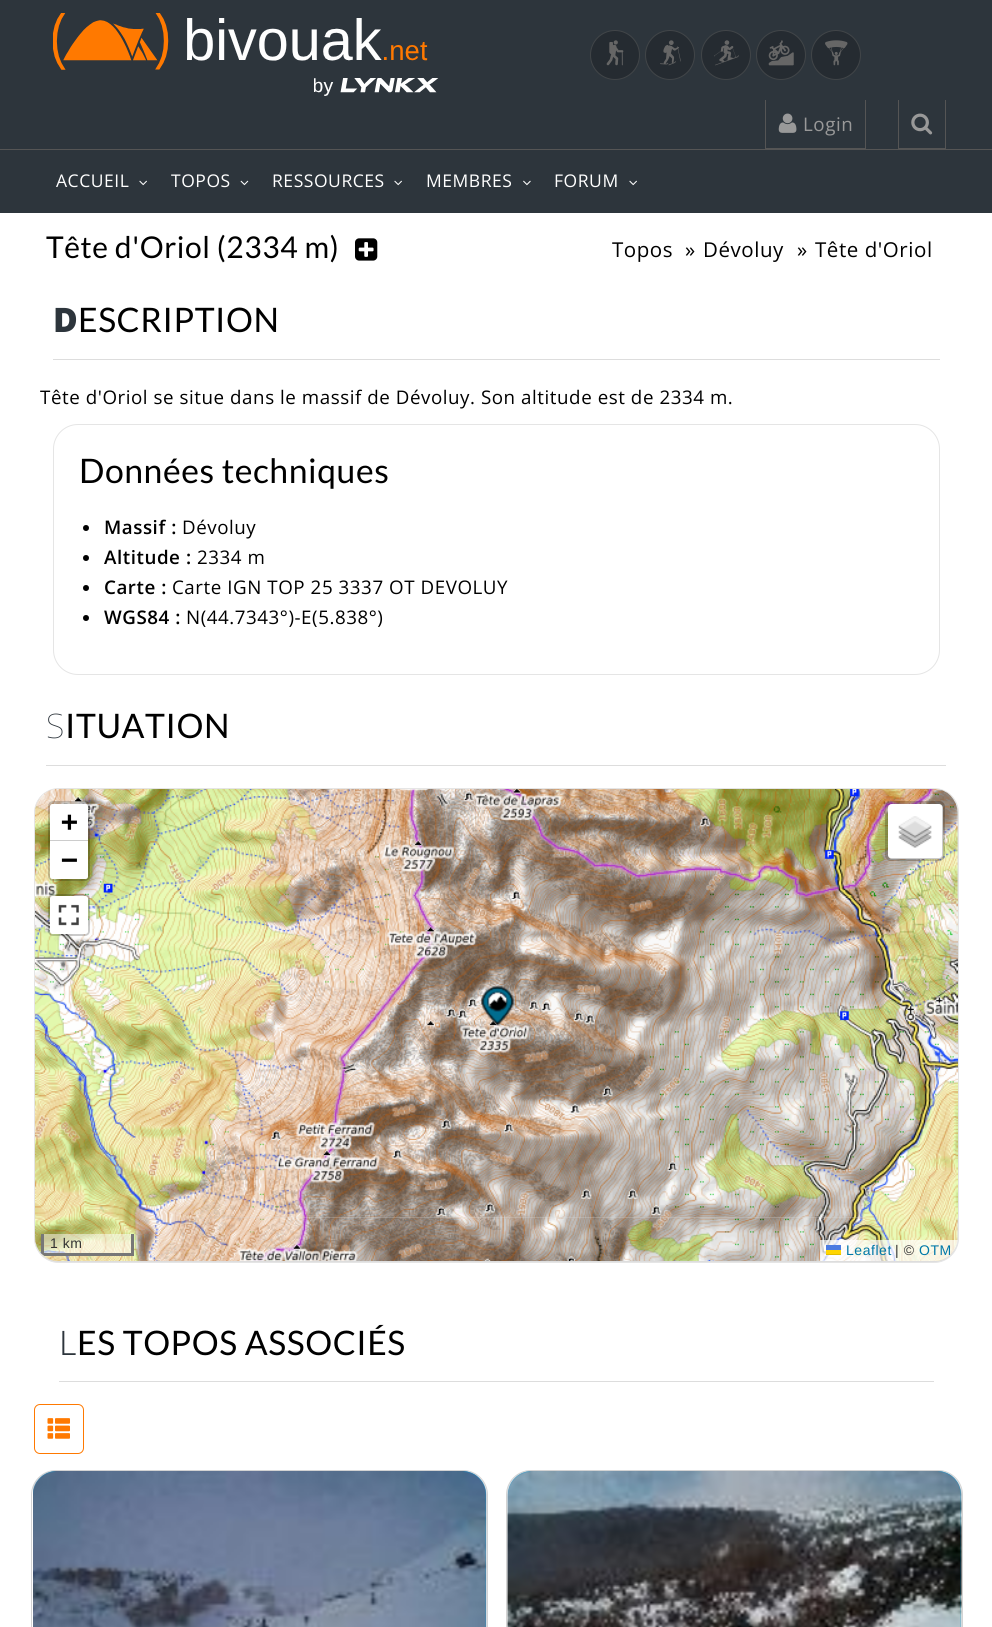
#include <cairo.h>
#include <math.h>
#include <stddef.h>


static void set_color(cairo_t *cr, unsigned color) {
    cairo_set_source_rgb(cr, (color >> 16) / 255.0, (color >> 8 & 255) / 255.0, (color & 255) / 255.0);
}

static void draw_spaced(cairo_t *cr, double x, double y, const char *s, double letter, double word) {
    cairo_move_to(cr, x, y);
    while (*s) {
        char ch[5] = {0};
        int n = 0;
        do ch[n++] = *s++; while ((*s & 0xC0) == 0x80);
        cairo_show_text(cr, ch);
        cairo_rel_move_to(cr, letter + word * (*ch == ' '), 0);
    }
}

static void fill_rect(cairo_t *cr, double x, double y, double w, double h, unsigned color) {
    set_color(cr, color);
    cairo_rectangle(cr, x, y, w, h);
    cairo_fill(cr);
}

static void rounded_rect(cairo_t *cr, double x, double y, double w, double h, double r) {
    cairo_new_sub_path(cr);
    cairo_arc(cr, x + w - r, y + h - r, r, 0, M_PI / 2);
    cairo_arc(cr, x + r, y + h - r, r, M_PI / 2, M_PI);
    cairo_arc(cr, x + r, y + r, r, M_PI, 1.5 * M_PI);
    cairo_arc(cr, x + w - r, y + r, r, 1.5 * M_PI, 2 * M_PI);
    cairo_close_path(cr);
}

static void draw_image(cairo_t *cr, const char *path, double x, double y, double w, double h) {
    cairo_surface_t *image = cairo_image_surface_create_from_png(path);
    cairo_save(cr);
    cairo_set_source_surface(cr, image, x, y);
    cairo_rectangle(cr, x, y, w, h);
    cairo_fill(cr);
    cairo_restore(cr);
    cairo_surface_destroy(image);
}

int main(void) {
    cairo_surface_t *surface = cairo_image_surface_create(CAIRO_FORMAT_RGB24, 992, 1627);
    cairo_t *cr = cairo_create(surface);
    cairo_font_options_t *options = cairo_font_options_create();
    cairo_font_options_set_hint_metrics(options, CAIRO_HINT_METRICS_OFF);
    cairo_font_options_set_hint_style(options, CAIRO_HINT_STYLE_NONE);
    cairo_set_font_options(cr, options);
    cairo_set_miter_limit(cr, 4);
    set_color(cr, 0xFFFFFF);
    cairo_paint(cr);
    fill_rect(cr, 0, 0, 992, 149, 0x2D353C);
    draw_image(cr, "assets/img1.png", 53, 13, 375, 57);
    draw_image(cr, "assets/img2.png", 314, 78, 125, 18);
    set_color(cr, 0x252B31);
    cairo_arc(cr, 615, 55, 24.5, 0, 2 * M_PI);
    cairo_fill_preserve(cr);
    set_color(cr, 0x414548);
    cairo_set_line_width(cr, 1);
    cairo_stroke(cr);
    draw_image(cr, "assets/img3.png", 606, 40, 18, 26);
    set_color(cr, 0x252B31);
    cairo_arc(cr, 670, 55, 24.5, 0, 2 * M_PI);
    cairo_fill_preserve(cr);
    set_color(cr, 0x414548);
    cairo_stroke(cr);
    draw_image(cr, "assets/img4.png", 660, 40, 21, 26);
    set_color(cr, 0x252B31);
    cairo_arc(cr, 726, 55, 24.5, 0, 2 * M_PI);
    cairo_fill_preserve(cr);
    set_color(cr, 0x414548);
    cairo_stroke(cr);
    draw_image(cr, "assets/img5.png", 714, 40, 25, 26);
    set_color(cr, 0x252B31);
    cairo_arc(cr, 781, 55, 24.5, 0, 2 * M_PI);
    cairo_fill_preserve(cr);
    set_color(cr, 0x414548);
    cairo_stroke(cr);
    draw_image(cr, "assets/img6.png", 768, 40, 26, 26);
    set_color(cr, 0x252B31);
    cairo_arc(cr, 836, 55, 24.5, 0, 2 * M_PI);
    cairo_fill_preserve(cr);
    set_color(cr, 0x414548);
    cairo_stroke(cr);
    draw_image(cr, "assets/img7.png", 825, 40, 23, 26);
    fill_rect(cr, 865, 100, 1, 49, 0x555555);
    fill_rect(cr, 765, 148, 101, 1, 0x555555);
    fill_rect(cr, 765, 100, 1, 49, 0x555555);
    draw_image(cr, "assets/img8.png", 778, 113, 19, 20);
    cairo_select_font_face(cr, "Open Sans", CAIRO_FONT_SLANT_NORMAL, CAIRO_FONT_WEIGHT_NORMAL);
    cairo_set_font_size(cr, 18.75);
    set_color(cr, 0x999999);
    draw_spaced(cr, 803, 131, "Login", 0.55, 0);
    fill_rect(cr, 945, 100, 1, 49, 0x555555);
    fill_rect(cr, 898, 148, 48, 1, 0x555555);
    fill_rect(cr, 898, 100, 1, 49, 0x555555);
    draw_image(cr, "assets/img9.png", 911, 113, 22, 22);
    fill_rect(cr, 0, 150, 992, 63, 0x2D353C);
    fill_rect(cr, 0, 149, 992, 1, 0x555555);
    cairo_set_font_size(cr, 17.5);
    set_color(cr, 0xFFFFFF);
    draw_spaced(cr, 56, 187, "ACCUEIL", 0.55, 0);
    draw_image(cr, "assets/img10.png", 139, 180, 8, 6);
    draw_spaced(cr, 171, 187, "TOPOS", 0.55, 0);
    draw_image(cr, "assets/img11.png", 240, 180, 9, 6);
    draw_spaced(cr, 272, 187, "RESSOURCES", 0.55, 0);
    draw_image(cr, "assets/img10.png", 394, 180, 8, 6);
    draw_spaced(cr, 426, 187, "MEMBRES", 0.55, 0);
    draw_image(cr, "assets/img12.png", 523, 180, 8, 6);
    draw_spaced(cr, 554, 187, "FORUM", 0.55, 0);
    draw_image(cr, "assets/img10.png", 629, 180, 8, 6);
    cairo_select_font_face(cr, "Lato", CAIRO_FONT_SLANT_NORMAL, CAIRO_FONT_WEIGHT_NORMAL);
    cairo_set_font_size(cr, 30);
    set_color(cr, 0x000000);
    draw_spaced(cr, 46, 258, "Tête d'Oriol (2334 m)", 0.55, 0);
    draw_image(cr, "assets/img13.png", 355, 238, 23, 23);
    cairo_select_font_face(cr, "Open Sans", CAIRO_FONT_SLANT_NORMAL, CAIRO_FONT_WEIGHT_NORMAL);
    cairo_set_font_size(cr, 20.5);
    draw_spaced(cr, 612, 257, "Topos", 0.55, 0);
    draw_spaced(cr, 685, 257, "»", 0.55, 0);
    draw_spaced(cr, 703, 257, "Dévoluy", 0.55, 0);
    draw_spaced(cr, 797, 257, "»", 0.55, 0);
    draw_spaced(cr, 815, 257, "Tête d'Oriol", 0.55, 0);
    fill_rect(cr, 53, 359, 887, 1, 0xDDDDDD);
    cairo_select_font_face(cr, "Noto Sans Black", CAIRO_FONT_SLANT_NORMAL, CAIRO_FONT_WEIGHT_NORMAL);
    cairo_set_font_size(cr, 33.75);
    set_color(cr, 0x2D353C);
    draw_spaced(cr, 53, 332, "D", 0.55, 0);
    cairo_select_font_face(cr, "Lato", CAIRO_FONT_SLANT_NORMAL, CAIRO_FONT_WEIGHT_NORMAL);
    set_color(cr, 0x000000);
    draw_spaced(cr, 78, 332, "ESCRIPTION", 0.55, 0);
    cairo_select_font_face(cr, "Open Sans", CAIRO_FONT_SLANT_NORMAL, CAIRO_FONT_WEIGHT_NORMAL);
    cairo_set_font_size(cr, 18.75);
    draw_spaced(cr, 40, 404, "Tête d'Oriol se situe dans le massif de Dévoluy. Son altitude est de 2334 m.", 0.55, 0);
    rounded_rect(cr, 53.5, 424.5, 886, 250, 24.5);
    set_color(cr, 0xE5E5E5);
    cairo_stroke(cr);
    cairo_select_font_face(cr, "Lato", CAIRO_FONT_SLANT_NORMAL, CAIRO_FONT_WEIGHT_NORMAL);
    cairo_set_font_size(cr, 33.75);
    set_color(cr, 0x000000);
    draw_spaced(cr, 79, 483, "Données techniques", 0.55, 0);
    cairo_new_path(cr);
    cairo_arc(cr, 86, 528, 3, 0, 2 * M_PI);
    cairo_fill(cr);
    cairo_select_font_face(cr, "Open Sans SemiBold", CAIRO_FONT_SLANT_NORMAL, CAIRO_FONT_WEIGHT_NORMAL);
    cairo_set_font_size(cr, 18.75);
    draw_spaced(cr, 104, 534, "Massif :", 0.55, 0);
    cairo_select_font_face(cr, "Open Sans", CAIRO_FONT_SLANT_NORMAL, CAIRO_FONT_WEIGHT_NORMAL);
    draw_spaced(cr, 182, 534, "Dévoluy", 0.55, 0);
    cairo_new_path(cr);
    cairo_arc(cr, 86, 558, 3, 0, 2 * M_PI);
    cairo_fill(cr);
    cairo_select_font_face(cr, "Open Sans SemiBold", CAIRO_FONT_SLANT_NORMAL, CAIRO_FONT_WEIGHT_NORMAL);
    draw_spaced(cr, 104, 564, "Altitude :", 0.55, 0);
    cairo_select_font_face(cr, "Open Sans", CAIRO_FONT_SLANT_NORMAL, CAIRO_FONT_WEIGHT_NORMAL);
    draw_spaced(cr, 197, 564, "2334 m", 0.55, 0);
    cairo_new_path(cr);
    cairo_arc(cr, 86, 588, 3, 0, 2 * M_PI);
    cairo_fill(cr);
    cairo_select_font_face(cr, "Open Sans SemiBold", CAIRO_FONT_SLANT_NORMAL, CAIRO_FONT_WEIGHT_NORMAL);
    draw_spaced(cr, 104, 594, "Carte :", 0.55, 0);
    cairo_select_font_face(cr, "Open Sans", CAIRO_FONT_SLANT_NORMAL, CAIRO_FONT_WEIGHT_NORMAL);
    draw_spaced(cr, 172, 594, "Carte IGN TOP 25 3337 OT DEVOLUY", 0.55, 0);
    cairo_new_path(cr);
    cairo_arc(cr, 86, 618, 3, 0, 2 * M_PI);
    cairo_fill(cr);
    cairo_select_font_face(cr, "Open Sans SemiBold", CAIRO_FONT_SLANT_NORMAL, CAIRO_FONT_WEIGHT_NORMAL);
    draw_spaced(cr, 104, 624, "WGS84 :", 0.55, 0);
    cairo_select_font_face(cr, "Open Sans", CAIRO_FONT_SLANT_NORMAL, CAIRO_FONT_WEIGHT_NORMAL);
    draw_spaced(cr, 186, 624, "N(44.7343°)-E(5.838°)", 0.55, 0);
    fill_rect(cr, 46, 765, 900, 1, 0xDDDDDD);
    cairo_select_font_face(cr, "Noto Sans Thin", CAIRO_FONT_SLANT_NORMAL, CAIRO_FONT_WEIGHT_NORMAL);
    cairo_set_font_size(cr, 33.75);
    set_color(cr, 0x2D353C);
    draw_spaced(cr, 46, 738, "S", 0.55, 0);
    cairo_select_font_face(cr, "Lato", CAIRO_FONT_SLANT_NORMAL, CAIRO_FONT_WEIGHT_NORMAL);
    set_color(cr, 0x000000);
    draw_spaced(cr, 65, 738, "ITUATION", 0.55, 0);
    set_color(cr, 0xDDDDDD);
    rounded_rect(cr, 34.5, 788.5, 924, 474, 24.5);
    cairo_fill_preserve(cr);
    set_color(cr, 0xE5E5E5);
    cairo_stroke(cr);
    draw_image(cr, "assets/img14.png", 35, 789, 190, 109);
    draw_image(cr, "assets/img15.png", 225, 789, 320, 109);
    draw_image(cr, "assets/img16.png", 545, 789, 320, 109);
    draw_image(cr, "assets/img21.png", 865, 897, 93, 321);
    draw_image(cr, "assets/img17.png", 865, 789, 93, 109);
    draw_image(cr, "assets/img18.png", 35, 898, 190, 320);
    draw_image(cr, "assets/img19.png", 225, 898, 320, 320);
    draw_image(cr, "assets/img20.png", 545, 898, 320, 320);
    draw_image(cr, "assets/img22.png", 35, 1217, 190, 44);
    draw_image(cr, "assets/img23.png", 225, 1217, 320, 44);
    draw_image(cr, "assets/img24.png", 545, 1217, 320, 44);
    draw_image(cr, "assets/img25.png", 865, 1217, 93, 44);
    draw_image(cr, "assets/img26.png", 480, 985, 35, 41);
    rounded_rect(cr, 49.5, 802.5, 39, 77, 3.5);
    cairo_set_source_rgba(cr, 0, 0, 0, 0.2);
    cairo_set_line_width(cr, 3);
    cairo_stroke(cr);
    set_color(cr, 0xFFFFFF);
    cairo_new_path(cr);
    cairo_move_to(cr, 52.5, 804);
    cairo_line_to(cr, 85.5, 804);
    cairo_curve_to(cr, 87, 804, 88, 805, 88, 806.5);
    cairo_line_to(cr, 88, 841);
    cairo_line_to(cr, 50, 841);
    cairo_line_to(cr, 50, 806.5);
    cairo_curve_to(cr, 50, 805, 51, 804, 52.5, 804);
    cairo_close_path(cr);
    cairo_fill(cr);
    fill_rect(cr, 50, 840, 38, 1, 0xCCCCCC);
    cairo_select_font_face(cr, "DejaVu Sans Mono", CAIRO_FONT_SLANT_NORMAL, CAIRO_FONT_WEIGHT_BOLD);
    cairo_set_font_size(cr, 28);
    set_color(cr, 0x000000);
    draw_spaced(cr, 61, 831, "+", 0.55, 0);
    set_color(cr, 0xFFFFFF);
    cairo_new_path(cr);
    cairo_move_to(cr, 50, 841);
    cairo_line_to(cr, 88, 841);
    cairo_line_to(cr, 88, 876.5);
    cairo_curve_to(cr, 88, 878, 87, 879, 85.5, 879);
    cairo_line_to(cr, 52.5, 879);
    cairo_curve_to(cr, 51, 879, 50, 878, 50, 876.5);
    cairo_close_path(cr);
    cairo_fill(cr);
    set_color(cr, 0x000000);
    draw_spaced(cr, 61, 869, "−", 0.55, 0);
    rounded_rect(cr, 49.5, 895.5, 39, 39, 3.5);
    cairo_set_source_rgba(cr, 0, 0, 0, 0.2);
    cairo_stroke(cr);
    set_color(cr, 0xFFFFFF);
    rounded_rect(cr, 50, 896, 38, 38, 2.5);
    cairo_fill(cr);
    draw_image(cr, "assets/img27.png", 58, 904, 21, 22);
    rounded_rect(cr, 888, 804, 55, 55, 4);
    cairo_fill(cr);
    rounded_rect(cr, 886.5, 802.5, 57, 57, 4.5);
    cairo_set_source_rgba(cr, 0, 0, 0, 0.2);
    cairo_stroke(cr);
    draw_image(cr, "assets/img28.png", 898, 816, 34, 32);
    cairo_save(cr);
    rounded_rect(cr, 35, 789, 923, 472, 24);
    cairo_clip(cr);
    cairo_set_source_rgba(cr, 1, 1, 1, 0.5);
    cairo_rectangle(cr, 41, 1234, 90, 21);
    cairo_fill(cr);
    cairo_restore(cr);
    fill_rect(cr, 131, 1234, 3, 21, 0x777777);
    cairo_save(cr);
    rounded_rect(cr, 35, 789, 923, 472, 24);
    cairo_clip(cr);
    fill_rect(cr, 41, 1253, 93, 3, 0x777777);
    fill_rect(cr, 41, 1234, 3, 21, 0x777777);
    cairo_restore(cr);
    cairo_select_font_face(cr, "Liberation Sans", CAIRO_FONT_SLANT_NORMAL, CAIRO_FONT_WEIGHT_NORMAL);
    cairo_set_font_size(cr, 14);
    set_color(cr, 0x333333);
    draw_spaced(cr, 50, 1248, "1 km", 0.55, 0);
    cairo_save(cr);
    rounded_rect(cr, 35, 789, 923, 472, 24);
    cairo_clip(cr);
    cairo_set_source_rgba(cr, 1, 1, 1, 0.7);
    cairo_rectangle(cr, 820, 1240, 138, 21);
    cairo_fill(cr);
    cairo_restore(cr);
    set_color(cr, 0x0078A8);
    draw_spaced(cr, 846, 1255, "Leaflet", 0.55, 0);
    fill_rect(cr, 826, 1245, 15, 5, 0x4C7BE1);
    fill_rect(cr, 826, 1250, 15, 4, 0xFFD500);
    fill_rect(cr, 826, 1254, 15, 1, 0xE0BC00);
    set_color(cr, 0x333333);
    draw_spaced(cr, 895, 1255, "| ©", 0.55, 0);
    set_color(cr, 0x0078A8);
    draw_spaced(cr, 919, 1255, "OTM", 0.55, 0);
    fill_rect(cr, 59, 1381, 875, 1, 0xDDDDDD);
    cairo_select_font_face(cr, "Noto Sans Light", CAIRO_FONT_SLANT_NORMAL, CAIRO_FONT_WEIGHT_NORMAL);
    cairo_set_font_size(cr, 33.75);
    set_color(cr, 0x2D353C);
    draw_spaced(cr, 59, 1355, "L", 0.55, 0);
    cairo_select_font_face(cr, "Lato", CAIRO_FONT_SLANT_NORMAL, CAIRO_FONT_WEIGHT_NORMAL);
    set_color(cr, 0x000000);
    draw_spaced(cr, 77, 1355, "ES TOPOS ASSOCIÉS", 0.55, 0);
    rounded_rect(cr, 34.5, 1404.5, 49, 49, 5.5);
    set_color(cr, 0xFF7900);
    cairo_set_line_width(cr, 1);
    cairo_stroke(cr);
    draw_image(cr, "assets/img29.png", 47, 1418, 23, 21);
    rounded_rect(cr, 31.5, 1470.5, 456, 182, 24.5);
    set_color(cr, 0xD3D3D3);
    cairo_stroke(cr);
    set_color(cr, 0x0099DA);
    cairo_new_path(cr);
    cairo_move_to(cr, 57, 1471);
    cairo_line_to(cr, 462, 1471);
    cairo_curve_to(cr, 475.5, 1471, 486, 1481.5, 486, 1495);
    cairo_line_to(cr, 486, 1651);
    cairo_line_to(cr, 33, 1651);
    cairo_line_to(cr, 33, 1495);
    cairo_curve_to(cr, 33, 1481.5, 43.5, 1471, 57, 1471);
    cairo_close_path(cr);
    cairo_fill(cr);
    draw_image(cr, "assets/img30.png", 33, 1471, 454, 156);
    rounded_rect(cr, 506.5, 1470.5, 456, 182, 24.5);
    set_color(cr, 0xD3D3D3);
    cairo_stroke(cr);
    set_color(cr, 0x0099DA);
    cairo_new_path(cr);
    cairo_move_to(cr, 532, 1471);
    cairo_line_to(cr, 937, 1471);
    cairo_curve_to(cr, 950.5, 1471, 961, 1481.5, 961, 1495);
    cairo_line_to(cr, 961, 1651);
    cairo_line_to(cr, 508, 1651);
    cairo_line_to(cr, 508, 1495);
    cairo_curve_to(cr, 508, 1481.5, 518.5, 1471, 532, 1471);
    cairo_close_path(cr);
    cairo_fill(cr);
    draw_image(cr, "assets/img31.png", 507, 1471, 455, 156);
    cairo_surface_write_to_png(surface, "output.png");
    cairo_font_options_destroy(options);
    cairo_destroy(cr);
    cairo_surface_destroy(surface);
    return 0;
}
